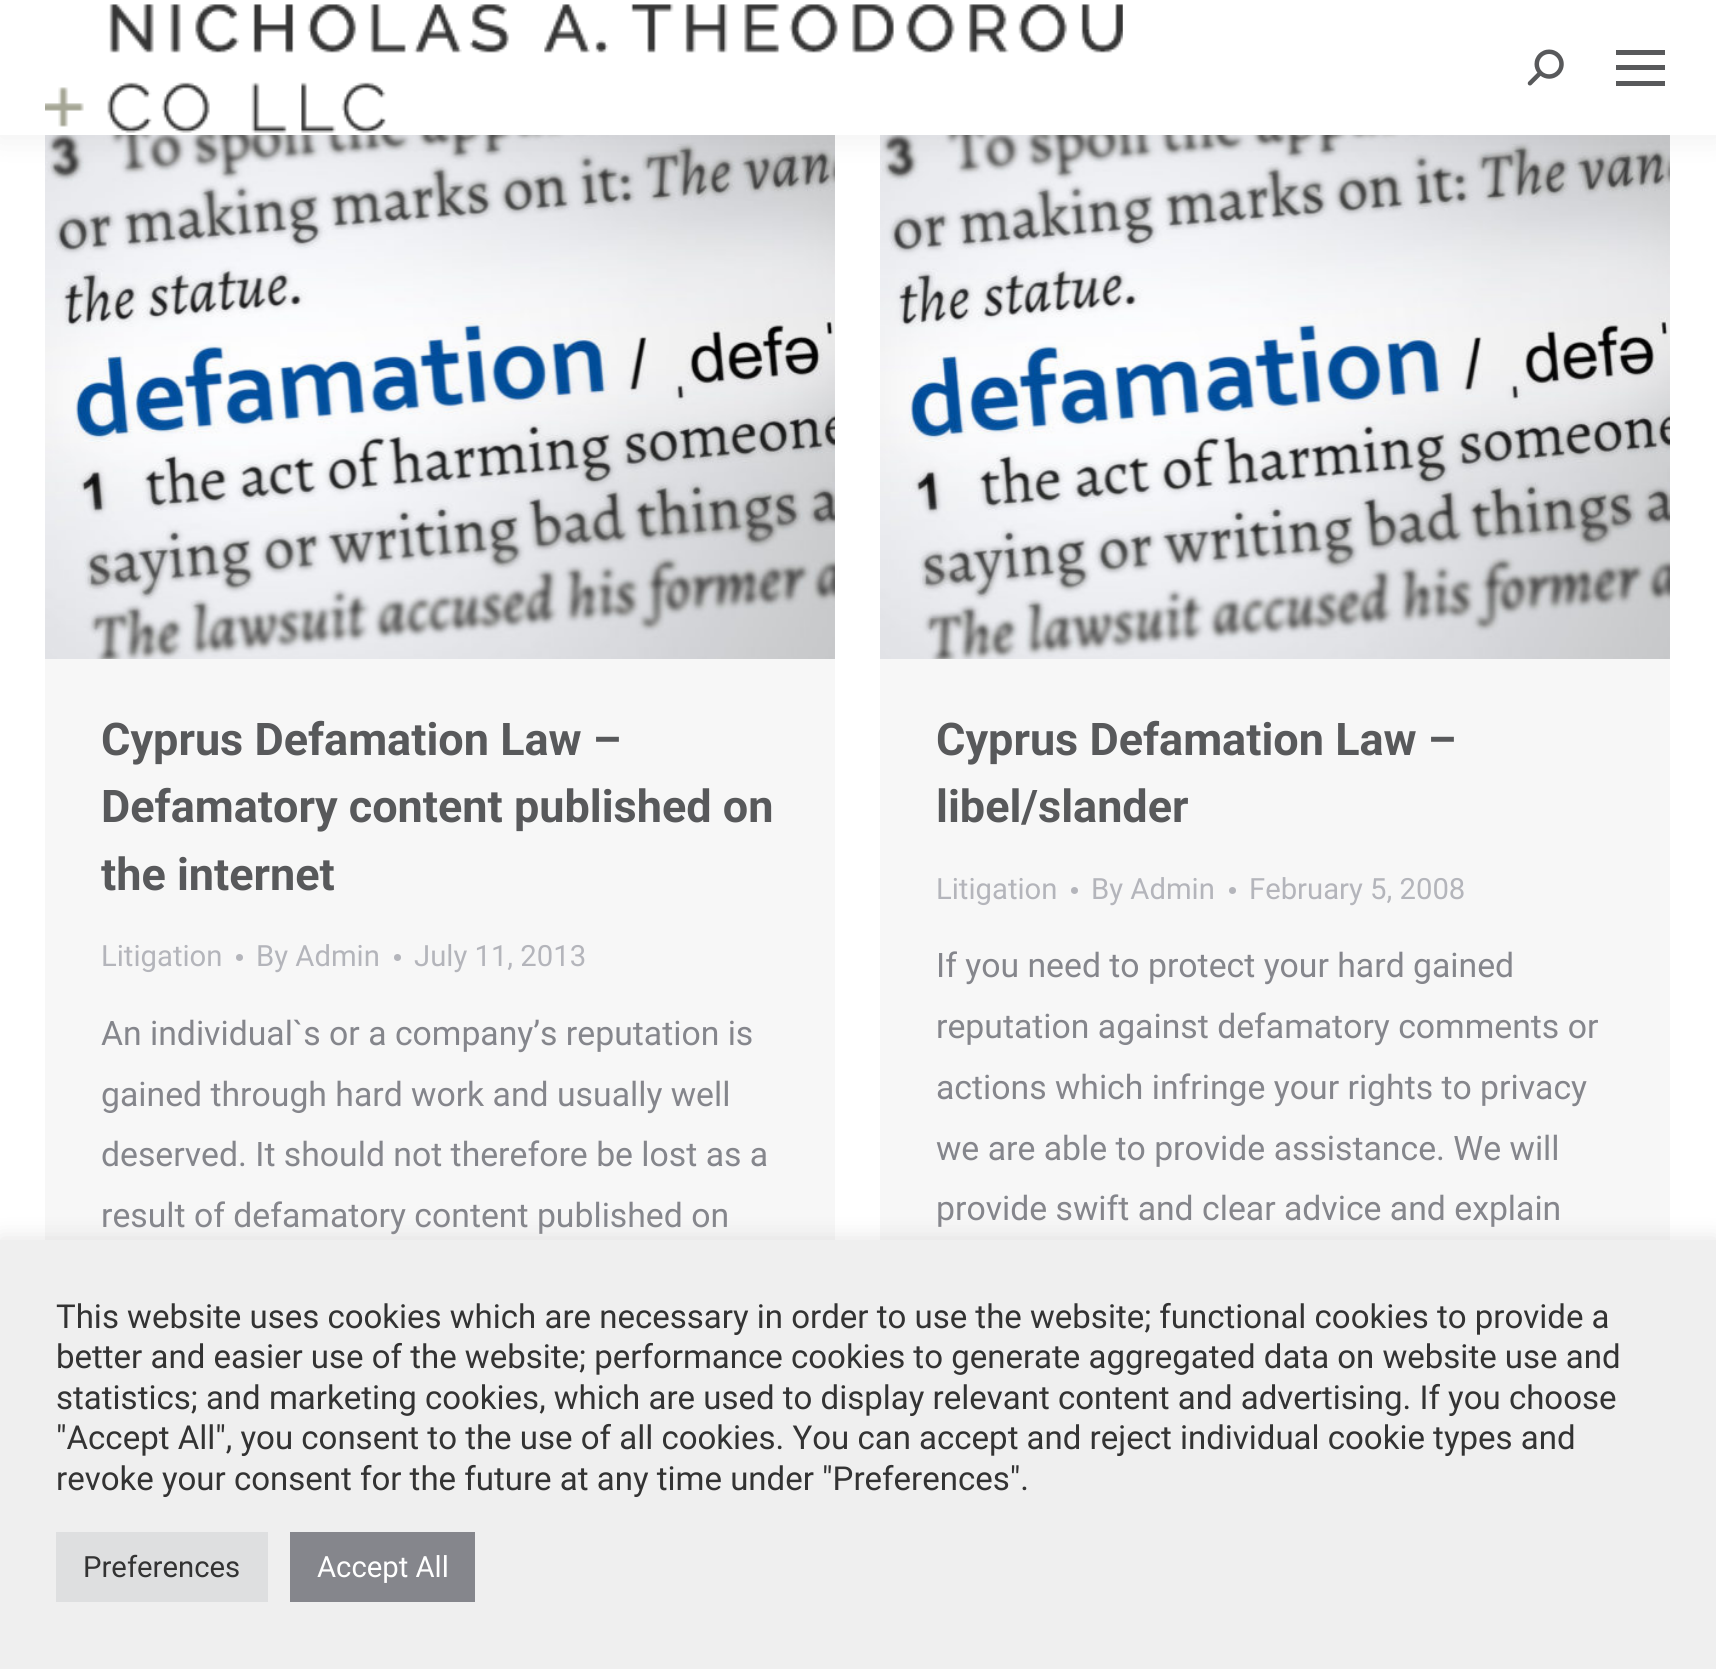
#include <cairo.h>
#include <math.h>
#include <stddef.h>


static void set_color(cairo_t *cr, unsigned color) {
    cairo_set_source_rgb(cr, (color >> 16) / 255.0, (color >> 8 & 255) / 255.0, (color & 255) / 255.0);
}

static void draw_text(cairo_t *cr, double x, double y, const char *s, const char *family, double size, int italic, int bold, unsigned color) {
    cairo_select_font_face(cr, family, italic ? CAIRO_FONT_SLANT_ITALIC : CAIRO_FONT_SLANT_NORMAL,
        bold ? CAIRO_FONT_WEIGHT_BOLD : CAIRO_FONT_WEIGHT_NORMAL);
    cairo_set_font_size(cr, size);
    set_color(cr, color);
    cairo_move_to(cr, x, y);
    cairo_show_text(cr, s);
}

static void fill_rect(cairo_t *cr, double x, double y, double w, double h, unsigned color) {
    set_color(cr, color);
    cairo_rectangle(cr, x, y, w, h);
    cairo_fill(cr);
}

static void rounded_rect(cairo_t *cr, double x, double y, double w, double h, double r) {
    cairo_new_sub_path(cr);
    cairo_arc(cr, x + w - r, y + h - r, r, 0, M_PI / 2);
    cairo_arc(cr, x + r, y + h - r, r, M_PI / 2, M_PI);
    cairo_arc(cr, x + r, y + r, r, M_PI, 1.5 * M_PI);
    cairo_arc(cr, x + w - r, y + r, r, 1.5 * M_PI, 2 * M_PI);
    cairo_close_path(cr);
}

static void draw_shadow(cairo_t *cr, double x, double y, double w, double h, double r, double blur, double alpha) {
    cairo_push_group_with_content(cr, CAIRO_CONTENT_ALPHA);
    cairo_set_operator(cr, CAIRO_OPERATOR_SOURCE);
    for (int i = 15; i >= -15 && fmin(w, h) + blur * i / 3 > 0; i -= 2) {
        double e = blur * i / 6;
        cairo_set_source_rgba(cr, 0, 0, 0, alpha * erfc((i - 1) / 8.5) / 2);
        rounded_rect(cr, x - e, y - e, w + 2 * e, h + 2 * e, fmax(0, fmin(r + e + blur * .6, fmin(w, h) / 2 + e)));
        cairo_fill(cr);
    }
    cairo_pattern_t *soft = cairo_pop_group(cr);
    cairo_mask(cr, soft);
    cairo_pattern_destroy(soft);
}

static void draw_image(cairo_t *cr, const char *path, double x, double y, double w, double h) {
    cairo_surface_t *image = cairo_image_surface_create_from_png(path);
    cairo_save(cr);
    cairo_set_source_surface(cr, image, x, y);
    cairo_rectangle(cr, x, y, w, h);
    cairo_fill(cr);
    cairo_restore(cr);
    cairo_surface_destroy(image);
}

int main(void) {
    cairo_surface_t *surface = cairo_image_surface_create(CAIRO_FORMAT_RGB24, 1716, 1669);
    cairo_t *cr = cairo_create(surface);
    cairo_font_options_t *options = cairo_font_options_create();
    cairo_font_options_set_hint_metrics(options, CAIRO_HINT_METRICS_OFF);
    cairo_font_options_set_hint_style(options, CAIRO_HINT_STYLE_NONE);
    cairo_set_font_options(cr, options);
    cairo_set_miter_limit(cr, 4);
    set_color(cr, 0xFFFFFF);
    cairo_paint(cr);
    draw_image(cr, "assets/img3.png", 45, 135, 790, 524);
    draw_image(cr, "assets/img4.png", 880, 135, 790, 524);
    set_color(cr, 0x000000);
    draw_shadow(cr, -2, -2, 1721, 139, 0, 17, 0.07);
    fill_rect(cr, 0, 0, 1716, 135, 0xFFFFFF);
    draw_image(cr, "assets/img1.png", 45, 4, 1078, 129);
    draw_image(cr, "assets/img2.png", 1527, 49, 37, 37);
    fill_rect(cr, 1616, 50, 49, 5, 0x58595B);
    fill_rect(cr, 1616, 65, 49, 5, 0x58595B);
    fill_rect(cr, 1616, 81, 49, 5, 0x58595B);
    fill_rect(cr, 45, 659, 790, 581, 0xF7F7F7);
    draw_text(cr, 101, 755, "Cyprus Defamation Law –", "Roboto", 45, 0, 1, 0x58595B);
    draw_text(cr, 101, 822, "Defamatory content published on", "Roboto", 45, 0, 1, 0x58595B);
    draw_text(cr, 101, 890, "the internet", "Roboto", 45, 0, 1, 0x58595B);
    draw_text(cr, 101, 966, "Litigation", "Roboto", 29.25, 0, 0, 0xB4B5BB);
    cairo_new_path(cr);
    cairo_arc(cr, 239.5, 957.5, 3.5, 0, 2 * M_PI);
    cairo_fill(cr);
    draw_text(cr, 256, 966, "By Admin", "Roboto", 29.25, 0, 0, 0xB4B5BB);
    cairo_new_path(cr);
    cairo_arc(cr, 397.5, 957.5, 3.5, 0, 2 * M_PI);
    cairo_fill(cr);
    draw_text(cr, 414, 966, "July 11, 2013", "Roboto", 29.25, 0, 0, 0xB4B5BB);
    draw_text(cr, 101, 1045, "An individual`s or a company’s reputation is", "Roboto", 33.75, 0, 0, 0x85868C);
    draw_text(cr, 101, 1106, "gained through hard work and usually well", "Roboto", 33.75, 0, 0, 0x85868C);
    draw_text(cr, 101, 1166, "deserved. It should not therefore be lost as a", "Roboto", 33.75, 0, 0, 0x85868C);
    draw_text(cr, 101, 1227, "result of defamatory content published on", "Roboto", 33.75, 0, 0, 0x85868C);
    fill_rect(cr, 880, 659, 790, 581, 0xF7F7F7);
    draw_text(cr, 936, 755, "Cyprus Defamation Law –", "Roboto", 45, 0, 1, 0x58595B);
    draw_text(cr, 936, 822, "libel/slander", "Roboto", 45, 0, 1, 0x58595B);
    draw_text(cr, 936, 899, "Litigation", "Roboto", 29.25, 0, 0, 0xB4B5BB);
    cairo_new_path(cr);
    cairo_arc(cr, 1074.5, 890.5, 3.5, 0, 2 * M_PI);
    cairo_fill(cr);
    draw_text(cr, 1091, 899, "By Admin", "Roboto", 29.25, 0, 0, 0xB4B5BB);
    cairo_new_path(cr);
    cairo_arc(cr, 1232.5, 890.5, 3.5, 0, 2 * M_PI);
    cairo_fill(cr);
    draw_text(cr, 1249, 899, "February 5, 2008", "Roboto", 29.25, 0, 0, 0xB4B5BB);
    draw_text(cr, 936, 977, "If you need to protect your hard gained", "Roboto", 33.75, 0, 0, 0x85868C);
    draw_text(cr, 936, 1038, "reputation against defamatory comments or", "Roboto", 33.75, 0, 0, 0x85868C);
    draw_text(cr, 936, 1099, "actions which infringe your rights to privacy", "Roboto", 33.75, 0, 0, 0x85868C);
    draw_text(cr, 936, 1160, "we are able to provide assistance. We will", "Roboto", 33.75, 0, 0, 0x85868C);
    draw_text(cr, 936, 1220, "provide swift and clear advice and explain", "Roboto", 33.75, 0, 0, 0x85868C);
    set_color(cr, 0xACABAB);
    draw_shadow(cr, 0, 1238, 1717, 429, 0, 11, 0.3);
    fill_rect(cr, 0, 1240, 1716, 429, 0xEFEFEF);
    draw_text(cr, 56, 1328, "This website uses cookies which are necessary in order to use the website; functional cookies to provide a", "Roboto", 33, 0, 0, 0x333333);
    draw_text(cr, 56, 1368, "better and easier use of the website; performance cookies to generate aggregated data on website use and", "Roboto", 33, 0, 0, 0x333333);
    draw_text(cr, 56, 1409, "statistics; and marketing cookies, which are used to display relevant content and advertising. If you choose", "Roboto", 33, 0, 0, 0x333333);
    draw_text(cr, 56, 1449, "\"Accept All\", you consent to the use of all cookies. You can accept and reject individual cookie types and", "Roboto", 33, 0, 0, 0x333333);
    draw_text(cr, 56, 1490, "revoke your consent for the future at any time under \"Preferences\".", "Roboto", 33, 0, 0, 0x333333);
    fill_rect(cr, 56, 1532, 212, 70, 0xDEDFE0);
    draw_text(cr, 83, 1577, "Preferences", "Roboto", 29.25, 0, 0, 0x333333);
    fill_rect(cr, 290, 1532, 185, 70, 0x85868C);
    draw_text(cr, 317, 1577, "Accept All", "Roboto", 29.25, 0, 0, 0xFFFFFF);
    cairo_surface_write_to_png(surface, "output.png");
    cairo_font_options_destroy(options);
    cairo_destroy(cr);
    cairo_surface_destroy(surface);
    return 0;
}
